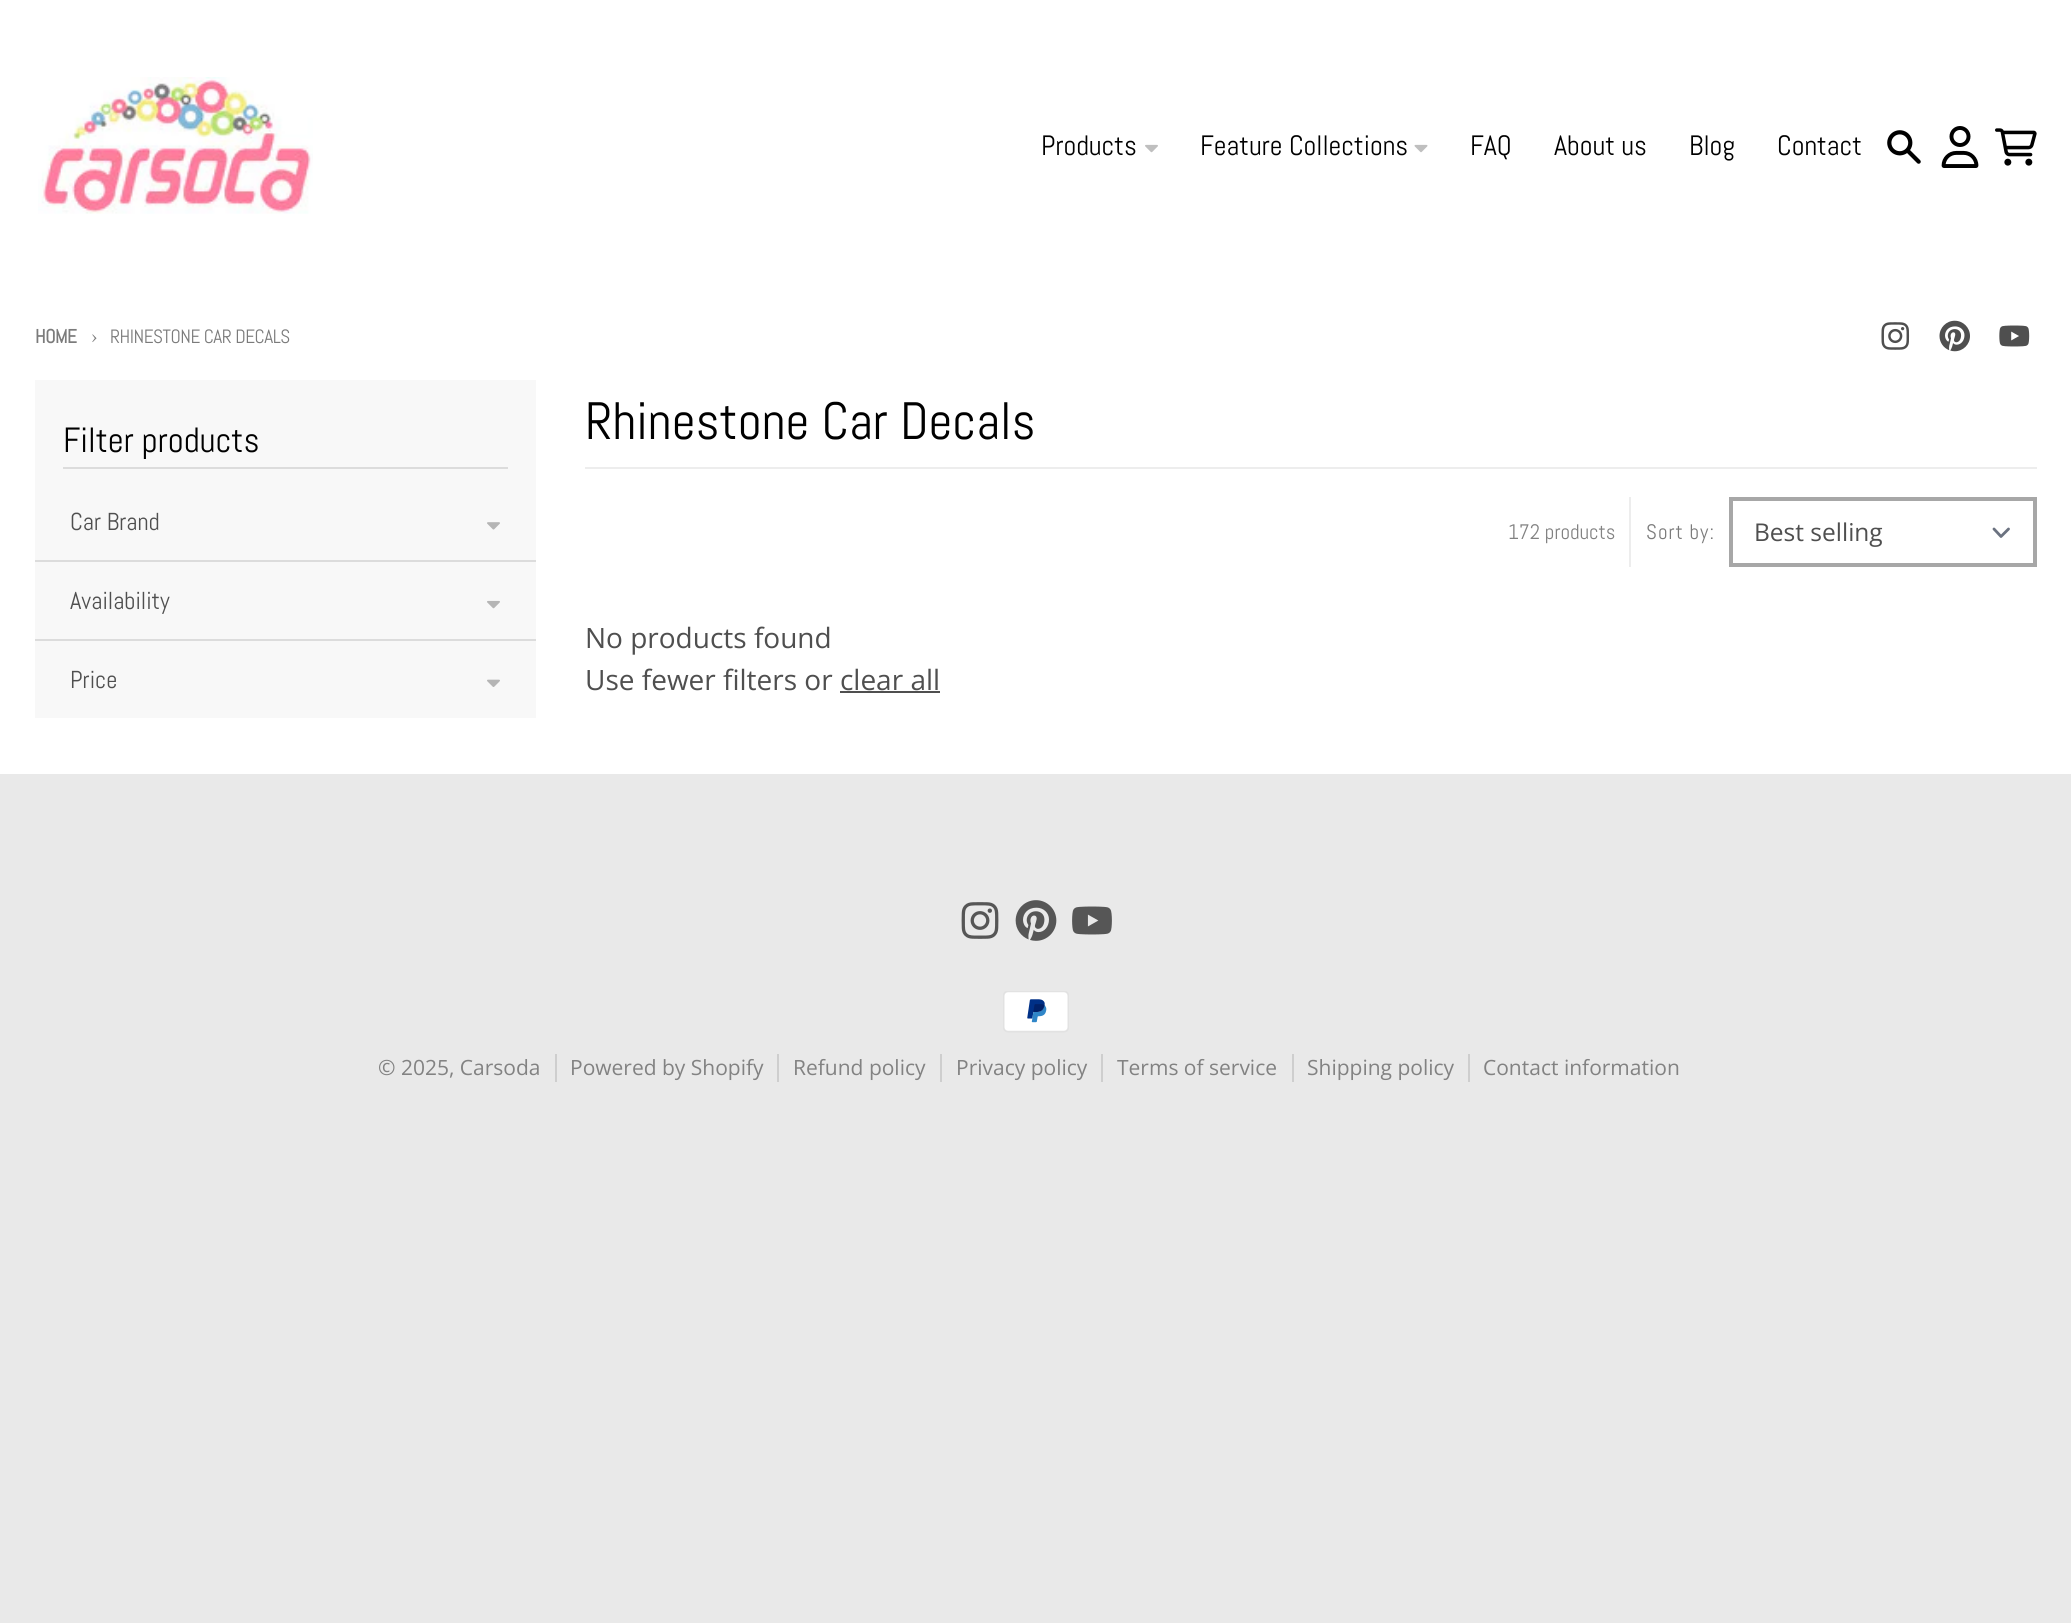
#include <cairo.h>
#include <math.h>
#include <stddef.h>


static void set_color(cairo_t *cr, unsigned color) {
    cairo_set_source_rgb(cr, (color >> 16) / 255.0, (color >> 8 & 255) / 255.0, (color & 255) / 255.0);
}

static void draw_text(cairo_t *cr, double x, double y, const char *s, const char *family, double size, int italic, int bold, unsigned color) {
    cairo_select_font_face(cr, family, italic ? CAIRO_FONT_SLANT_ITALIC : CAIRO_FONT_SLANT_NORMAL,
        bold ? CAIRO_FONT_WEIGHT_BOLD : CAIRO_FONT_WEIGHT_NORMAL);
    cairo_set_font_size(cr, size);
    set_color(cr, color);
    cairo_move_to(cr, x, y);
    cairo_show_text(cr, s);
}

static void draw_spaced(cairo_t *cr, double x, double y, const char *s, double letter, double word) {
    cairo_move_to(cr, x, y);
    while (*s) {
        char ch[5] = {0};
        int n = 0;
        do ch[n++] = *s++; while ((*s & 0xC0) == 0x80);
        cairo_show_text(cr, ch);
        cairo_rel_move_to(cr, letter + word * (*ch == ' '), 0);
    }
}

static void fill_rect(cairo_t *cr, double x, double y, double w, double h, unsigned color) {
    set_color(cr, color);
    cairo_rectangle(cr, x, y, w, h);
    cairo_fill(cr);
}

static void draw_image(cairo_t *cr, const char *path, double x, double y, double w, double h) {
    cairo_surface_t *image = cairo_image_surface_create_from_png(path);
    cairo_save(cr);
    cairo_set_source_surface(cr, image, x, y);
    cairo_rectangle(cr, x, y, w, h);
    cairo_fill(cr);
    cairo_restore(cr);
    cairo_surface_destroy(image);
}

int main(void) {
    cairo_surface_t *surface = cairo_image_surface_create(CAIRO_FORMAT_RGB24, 2071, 1623);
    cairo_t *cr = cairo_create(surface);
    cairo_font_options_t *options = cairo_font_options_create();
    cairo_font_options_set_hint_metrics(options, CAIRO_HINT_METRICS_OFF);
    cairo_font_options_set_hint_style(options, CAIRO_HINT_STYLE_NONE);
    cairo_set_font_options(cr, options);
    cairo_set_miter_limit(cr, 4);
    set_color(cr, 0xE9E9E9);
    cairo_paint(cr);
    fill_rect(cr, 0, 0, 2071, 774, 0xFFFFFF);
    draw_image(cr, "assets/img1.png", 38, 77, 275, 137);
    draw_text(cr, 1041, 155, "Products", "Abel", 28, 0, 0, 0x000000);
    draw_image(cr, "assets/img2.png", 1145, 144, 13, 9);
    draw_text(cr, 1200, 155, "Feature Collections", "Abel", 28, 0, 0, 0x000000);
    draw_image(cr, "assets/img3.png", 1414, 144, 14, 9);
    draw_text(cr, 1470, 155, "FAQ", "Abel", 28, 0, 0, 0x000000);
    draw_text(cr, 1554, 155, "About us", "Abel", 28, 0, 0, 0x000000);
    draw_text(cr, 1689, 155, "Blog", "Abel", 28, 0, 0, 0x000000);
    draw_text(cr, 1777, 155, "Contact", "Abel", 28, 0, 0, 0x000000);
    draw_image(cr, "assets/img4.png", 1887, 130, 34, 34);
    draw_image(cr, "assets/img5.png", 1941, 126, 38, 42);
    draw_image(cr, "assets/img6.png", 1995, 128, 42, 38);
    cairo_select_font_face(cr, "Abel", CAIRO_FONT_SLANT_NORMAL, CAIRO_FONT_WEIGHT_BOLD);
    cairo_set_font_size(cr, 19.25);
    set_color(cr, 0x7B7B7B);
    draw_spaced(cr, 35, 343, "HOME", -0.5, 0);
    cairo_select_font_face(cr, "Abel", CAIRO_FONT_SLANT_NORMAL, CAIRO_FONT_WEIGHT_NORMAL);
    cairo_set_font_size(cr, 21);
    draw_spaced(cr, 91, 343, "›", -0.5, 0);
    cairo_set_font_size(cr, 19.25);
    draw_spaced(cr, 110, 343, "RHINESTONE CAR DECALS", -0.5, 0);
    draw_image(cr, "assets/img7.png", 1881, 322, 29, 28);
    draw_image(cr, "assets/img8.png", 1939, 320, 31, 32);
    draw_image(cr, "assets/img9.png", 1999, 325, 31, 22);
    fill_rect(cr, 35, 380, 501, 338, 0xF8F8F8);
    fill_rect(cr, 63, 467, 445, 2, 0xDCDCDC);
    draw_text(cr, 63, 452, "Filter products", "Abel", 35, 0, 0, 0x000000);
    draw_text(cr, 70, 530, "Car Brand", "Abel", 24.5, 0, 0, 0x4F4F4F);
    draw_image(cr, "assets/img10.png", 487, 522, 13, 8);
    fill_rect(cr, 35, 560, 501, 2, 0xDCDCDC);
    draw_text(cr, 70, 609, "Availability", "Abel", 24.5, 0, 0, 0x4F4F4F);
    draw_image(cr, "assets/img11.png", 487, 600, 13, 9);
    fill_rect(cr, 35, 639, 501, 2, 0xDCDCDC);
    draw_text(cr, 70, 688, "Price", "Abel", 24.5, 0, 0, 0x4F4F4F);
    draw_image(cr, "assets/img12.png", 487, 679, 13, 8);
    fill_rect(cr, 585, 467, 1452, 2, 0xEDEDED);
    draw_text(cr, 585, 439, "Rhinestone Car Decals", "Abel", 52.5, 0, 0, 0x000000);
    draw_text(cr, 1508, 539, "172 products", "Abel", 21, 0, 0, 0x828282);
    fill_rect(cr, 1629, 497, 2, 70, 0xEDEDED);
    set_color(cr, 0x7B7B7B);
    draw_spaced(cr, 1646, 539, "Sort by:", 1, 0);
    cairo_new_path(cr);
    cairo_move_to(cr, 1994, 529);
    cairo_line_to(cr, 2001, 536.5);
    cairo_line_to(cr, 2008.5, 529);
    set_color(cr, 0x6B7280);
    cairo_set_line_width(cr, 2.8);
    cairo_set_line_cap(cr, CAIRO_LINE_CAP_ROUND);
    cairo_set_line_join(cr, CAIRO_LINE_JOIN_ROUND);
    cairo_stroke(cr);
    cairo_rectangle(cr, 1731, 499, 304, 66);
    set_color(cr, 0xA7A7A7);
    cairo_set_line_width(cr, 4);
    cairo_set_line_cap(cr, CAIRO_LINE_CAP_BUTT);
    cairo_set_line_join(cr, CAIRO_LINE_JOIN_MITER);
    cairo_stroke(cr);
    draw_text(cr, 1754, 541, "Best selling", "Open Sans", 24.5, 0, 0, 0x4F4F4F);
    draw_text(cr, 585, 648, "No products found", "Open Sans", 28, 0, 0, 0x4F4F4F);
    draw_text(cr, 585, 690, "Use fewer filters or clear all", "Open Sans", 28, 0, 0, 0x4F4F4F);
    fill_rect(cr, 840, 691, 100, 2, 0x4F4F4F);
    draw_image(cr, "assets/img13.png", 961, 902, 38, 37);
    draw_image(cr, "assets/img14.png", 1015, 900, 42, 41);
    draw_image(cr, "assets/img15.png", 1072, 906, 40, 29);
    draw_image(cr, "assets/img16.png", 1003, 991, 66, 42);
    draw_text(cr, 378, 1075, "© 2025, Carsoda", "Open Sans", 21, 0, 0, 0x828282);
    fill_rect(cr, 555, 1054, 2, 28, 0xCECECE);
    draw_text(cr, 570, 1075, "Powered by Shopify", "Open Sans", 21, 0, 0, 0x828282);
    fill_rect(cr, 777, 1054, 2, 28, 0xCECECE);
    draw_text(cr, 793, 1075, "Refund policy", "Open Sans", 21, 0, 0, 0x828282);
    fill_rect(cr, 940, 1054, 2, 28, 0xCECECE);
    draw_text(cr, 956, 1075, "Privacy policy", "Open Sans", 21, 0, 0, 0x828282);
    fill_rect(cr, 1101, 1054, 2, 28, 0xCECECE);
    draw_text(cr, 1117, 1075, "Terms of service", "Open Sans", 21, 0, 0, 0x828282);
    fill_rect(cr, 1292, 1054, 2, 28, 0xCECECE);
    draw_text(cr, 1307, 1075, "Shipping policy", "Open Sans", 21, 0, 0, 0x828282);
    fill_rect(cr, 1468, 1054, 2, 28, 0xCECECE);
    draw_text(cr, 1483, 1075, "Contact information", "Open Sans", 21, 0, 0, 0x828282);
    cairo_surface_write_to_png(surface, "output.png");
    cairo_font_options_destroy(options);
    cairo_destroy(cr);
    cairo_surface_destroy(surface);
    return 0;
}
